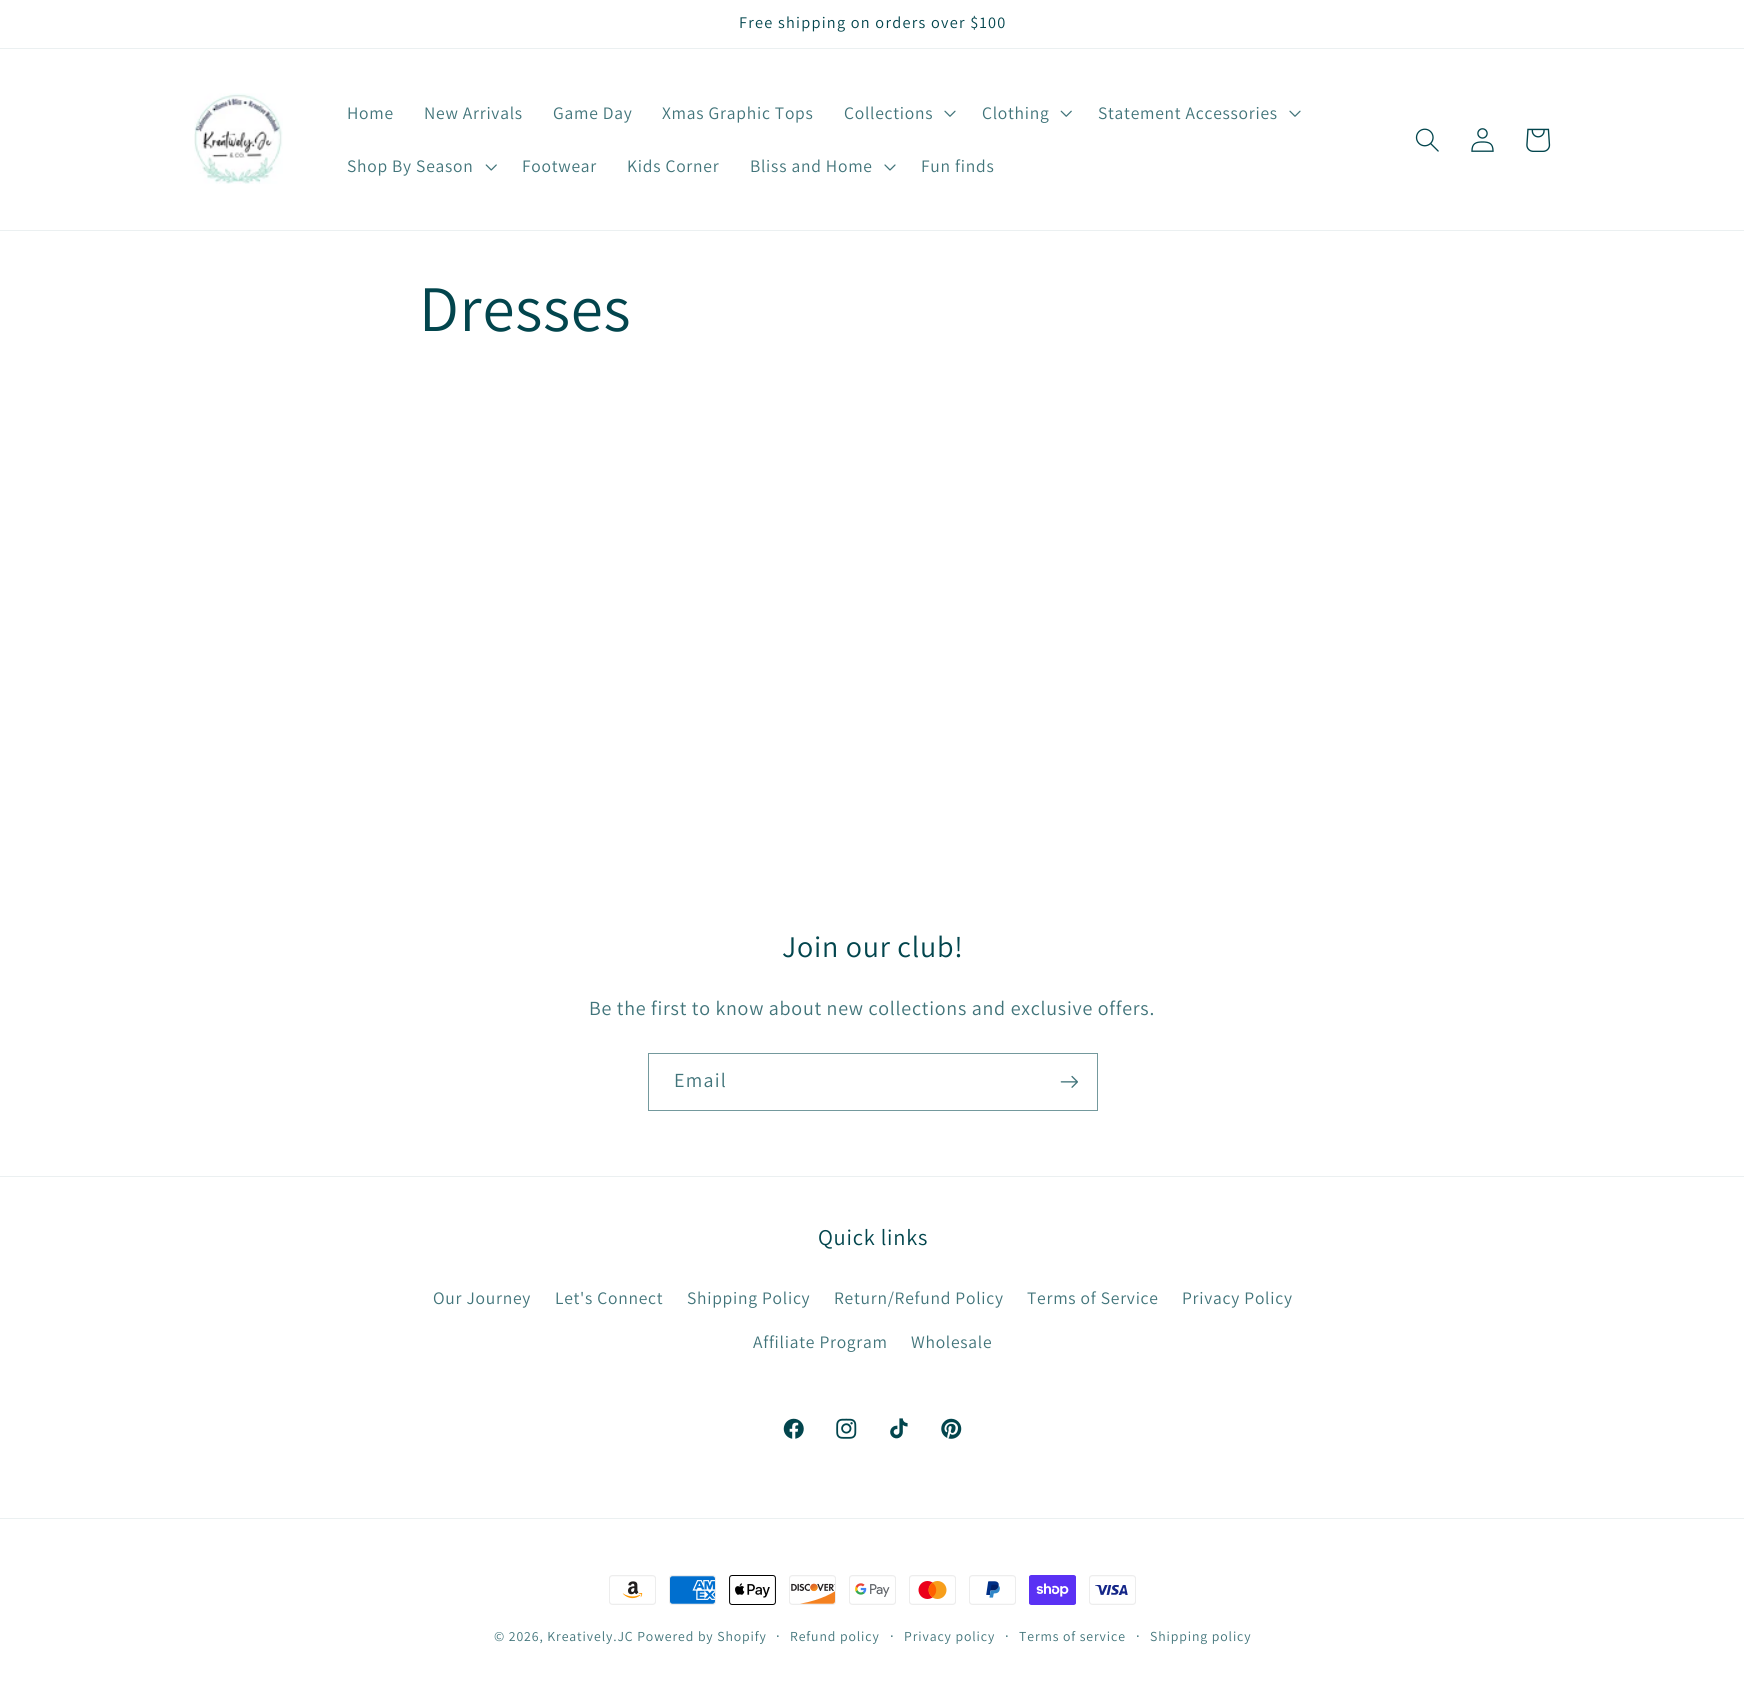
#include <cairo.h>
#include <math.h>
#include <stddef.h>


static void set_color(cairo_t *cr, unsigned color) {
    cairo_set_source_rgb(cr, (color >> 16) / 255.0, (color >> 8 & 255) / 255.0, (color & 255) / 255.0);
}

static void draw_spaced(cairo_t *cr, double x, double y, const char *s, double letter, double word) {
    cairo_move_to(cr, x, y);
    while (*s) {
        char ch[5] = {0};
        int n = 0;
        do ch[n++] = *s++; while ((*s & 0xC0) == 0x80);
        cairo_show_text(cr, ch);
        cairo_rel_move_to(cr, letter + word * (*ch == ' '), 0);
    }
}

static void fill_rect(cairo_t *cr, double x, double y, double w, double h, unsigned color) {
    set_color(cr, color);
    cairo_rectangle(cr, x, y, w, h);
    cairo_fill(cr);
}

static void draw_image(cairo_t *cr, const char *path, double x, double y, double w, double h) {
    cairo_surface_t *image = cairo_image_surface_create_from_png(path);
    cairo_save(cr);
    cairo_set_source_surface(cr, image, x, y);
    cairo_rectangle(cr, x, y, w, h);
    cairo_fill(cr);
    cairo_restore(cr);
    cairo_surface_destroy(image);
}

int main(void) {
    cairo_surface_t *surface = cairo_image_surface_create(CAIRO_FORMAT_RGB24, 1744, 1693);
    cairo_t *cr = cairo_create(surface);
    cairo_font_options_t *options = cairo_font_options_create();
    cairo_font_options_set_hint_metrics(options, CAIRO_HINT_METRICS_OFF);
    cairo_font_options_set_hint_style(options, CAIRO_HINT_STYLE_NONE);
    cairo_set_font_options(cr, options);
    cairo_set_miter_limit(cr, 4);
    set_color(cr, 0xFFFFFF);
    cairo_paint(cr);
    fill_rect(cr, 0, 48, 1744, 1, 0xEBF0F1);
    cairo_select_font_face(cr, "Assistant", CAIRO_FONT_SLANT_NORMAL, CAIRO_FONT_WEIGHT_NORMAL);
    cairo_set_font_size(cr, 16.25);
    set_color(cr, 0x02454D);
    draw_spaced(cr, 739, 28, "Free shipping on orders over $100", 1.25, 0);
    fill_rect(cr, 0, 230, 1744, 1, 0xEBF0F1);
    draw_image(cr, "assets/img1.png", 194, 93, 89, 91);
    cairo_set_font_size(cr, 17.5);
    set_color(cr, 0x41747A);
    draw_spaced(cr, 347, 119, "Home", 0.75, 0);
    draw_spaced(cr, 424, 119, "New Arrivals", 0.75, 0);
    draw_spaced(cr, 553, 119, "Game Day", 0.75, 0);
    draw_spaced(cr, 662, 119, "Xmas Graphic Tops", 0.75, 0);
    draw_spaced(cr, 844, 119, "Collections", 0.75, 0);
    draw_image(cr, "assets/img2.png", 944, 110, 12, 7);
    draw_spaced(cr, 982, 119, "Clothing", 0.75, 0);
    draw_image(cr, "assets/img3.png", 1060, 110, 12, 7);
    draw_spaced(cr, 1098, 119, "Statement Accessories", 0.75, 0);
    draw_image(cr, "assets/img2.png", 1289, 110, 12, 7);
    draw_spaced(cr, 347, 172, "Shop By Season", 0.75, 0);
    draw_image(cr, "assets/img4.png", 485, 164, 12, 7);
    draw_spaced(cr, 522, 172, "Footwear", 0.75, 0);
    draw_spaced(cr, 627, 172, "Kids Corner", 0.75, 0);
    draw_spaced(cr, 750, 172, "Bliss and Home", 0.75, 0);
    draw_image(cr, "assets/img5.png", 884, 164, 12, 7);
    draw_spaced(cr, 921, 172, "Fun finds", 0.75, 0);
    draw_image(cr, "assets/img6.png", 1415, 128, 24, 24);
    draw_image(cr, "assets/img7.png", 1471, 128, 23, 24);
    draw_image(cr, "assets/img8.png", 1526, 128, 25, 24);
    cairo_set_font_size(cr, 65);
    set_color(cr, 0x02454D);
    draw_spaced(cr, 419, 331, "Dresses", 0.75, 0);
    cairo_set_font_size(cr, 30);
    draw_spaced(cr, 782, 957, "Join our club!", 0.75, 0);
    cairo_set_font_size(cr, 20);
    set_color(cr, 0x41747A);
    draw_spaced(cr, 589, 1015, "Be the first to know about new collections and exclusive offers.", 0.75, 0);
    cairo_rectangle(cr, 648.5, 1053.5, 449, 57);
    set_color(cr, 0x74999D);
    cairo_set_line_width(cr, 1);
    cairo_stroke(cr);
    set_color(cr, 0x41747A);
    draw_spaced(cr, 674, 1087, "Email", 1.25, 0);
    draw_image(cr, "assets/img9.png", 1060, 1075, 18, 13);
    fill_rect(cr, 0, 1176, 1744, 1, 0xEBF0F1);
    cairo_set_font_size(cr, 22.5);
    set_color(cr, 0x02454D);
    draw_spaced(cr, 818, 1245, "Quick links", 0.75, 0);
    cairo_set_font_size(cr, 17.5);
    set_color(cr, 0x41747A);
    draw_spaced(cr, 433, 1304, "Our Journey", 0.75, 0);
    draw_spaced(cr, 555, 1304, "Let's Connect", 0.75, 0);
    draw_spaced(cr, 687, 1304, "Shipping Policy", 0.75, 0);
    draw_spaced(cr, 834, 1304, "Return/Refund Policy", 0.75, 0);
    draw_spaced(cr, 1027, 1304, "Terms of Service", 0.75, 0);
    draw_spaced(cr, 1182, 1304, "Privacy Policy", 0.75, 0);
    draw_spaced(cr, 753, 1348, "Affiliate Program", 0.75, 0);
    draw_spaced(cr, 911, 1348, "Wholesale", 0.75, 0);
    draw_image(cr, "assets/img10.png", 783, 1418, 21, 21);
    draw_image(cr, "assets/img11.png", 836, 1418, 21, 21);
    draw_image(cr, "assets/img12.png", 890, 1418, 18, 21);
    draw_image(cr, "assets/img13.png", 941, 1418, 21, 21);
    fill_rect(cr, 0, 1518, 1744, 1, 0xEBF0F1);
    draw_image(cr, "assets/img14.png", 609, 1575, 47, 30);
    draw_image(cr, "assets/img15.png", 669, 1575, 47, 30);
    draw_image(cr, "assets/img16.png", 729, 1575, 47, 30);
    draw_image(cr, "assets/img17.png", 789, 1575, 47, 30);
    draw_image(cr, "assets/img18.png", 849, 1575, 47, 30);
    draw_image(cr, "assets/img19.png", 909, 1575, 47, 30);
    draw_image(cr, "assets/img20.png", 969, 1575, 47, 30);
    draw_image(cr, "assets/img21.png", 1029, 1575, 47, 30);
    draw_image(cr, "assets/img22.png", 1089, 1575, 47, 30);
    cairo_set_font_size(cr, 13.75);
    set_color(cr, 0x41747A);
    draw_spaced(cr, 494, 1641, "© 2026, Kreatively.JC Powered by Shopify", 0.9, 0);
    cairo_set_font_size(cr, 15);
    draw_spaced(cr, 776, 1641, "·", 0.9, 0);
    cairo_set_font_size(cr, 13.75);
    draw_spaced(cr, 790, 1641, "Refund policy", 0.9, 0);
    cairo_set_font_size(cr, 15);
    draw_spaced(cr, 890, 1641, "·", 0.9, 0);
    cairo_set_font_size(cr, 13.75);
    draw_spaced(cr, 904, 1641, "Privacy policy", 0.9, 0);
    cairo_set_font_size(cr, 15);
    draw_spaced(cr, 1005, 1641, "·", 0.9, 0);
    cairo_set_font_size(cr, 13.75);
    draw_spaced(cr, 1019, 1641, "Terms of service", 0.9, 0);
    cairo_set_font_size(cr, 15);
    draw_spaced(cr, 1136, 1641, "·", 0.9, 0);
    cairo_set_font_size(cr, 13.75);
    draw_spaced(cr, 1150, 1641, "Shipping policy", 0.9, 0);
    cairo_surface_write_to_png(surface, "output.png");
    cairo_font_options_destroy(options);
    cairo_destroy(cr);
    cairo_surface_destroy(surface);
    return 0;
}
